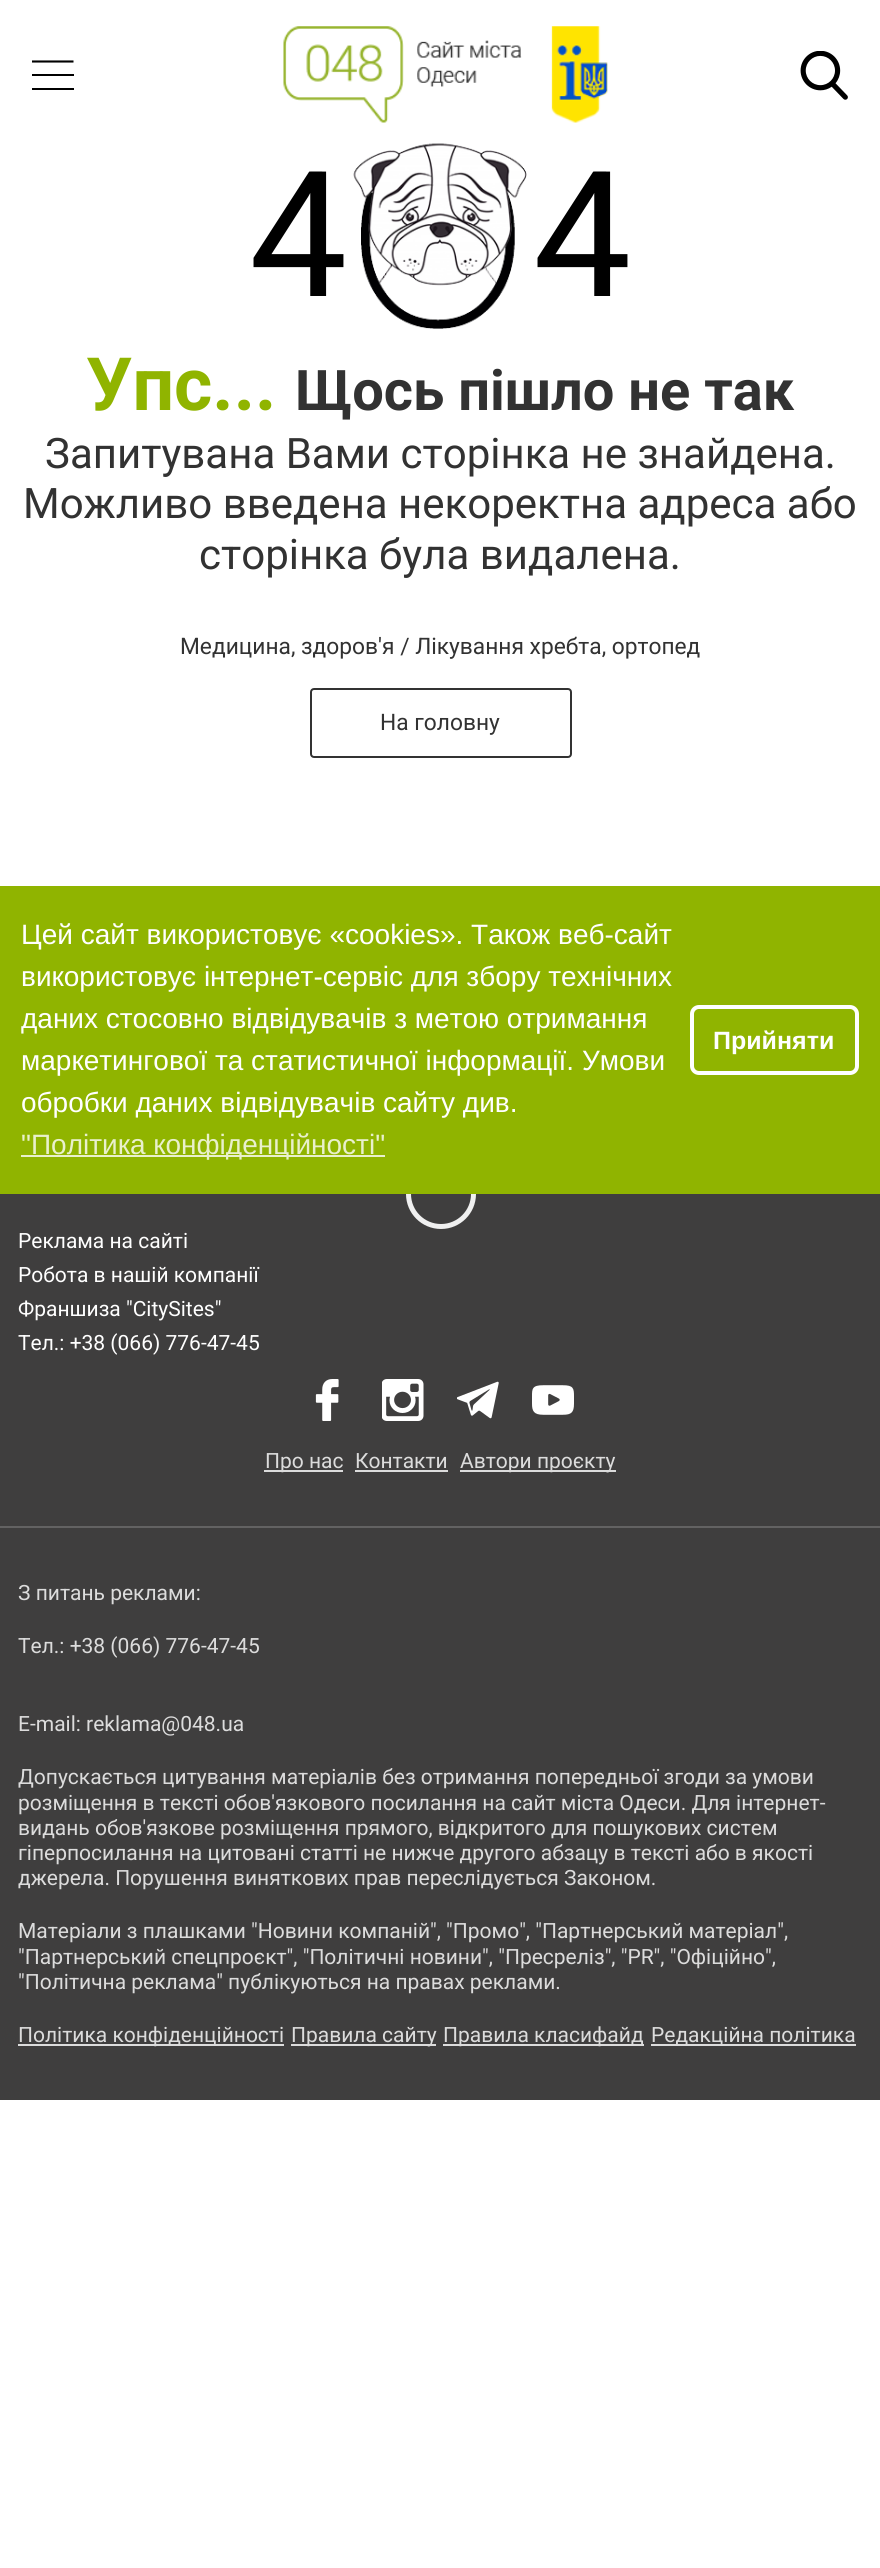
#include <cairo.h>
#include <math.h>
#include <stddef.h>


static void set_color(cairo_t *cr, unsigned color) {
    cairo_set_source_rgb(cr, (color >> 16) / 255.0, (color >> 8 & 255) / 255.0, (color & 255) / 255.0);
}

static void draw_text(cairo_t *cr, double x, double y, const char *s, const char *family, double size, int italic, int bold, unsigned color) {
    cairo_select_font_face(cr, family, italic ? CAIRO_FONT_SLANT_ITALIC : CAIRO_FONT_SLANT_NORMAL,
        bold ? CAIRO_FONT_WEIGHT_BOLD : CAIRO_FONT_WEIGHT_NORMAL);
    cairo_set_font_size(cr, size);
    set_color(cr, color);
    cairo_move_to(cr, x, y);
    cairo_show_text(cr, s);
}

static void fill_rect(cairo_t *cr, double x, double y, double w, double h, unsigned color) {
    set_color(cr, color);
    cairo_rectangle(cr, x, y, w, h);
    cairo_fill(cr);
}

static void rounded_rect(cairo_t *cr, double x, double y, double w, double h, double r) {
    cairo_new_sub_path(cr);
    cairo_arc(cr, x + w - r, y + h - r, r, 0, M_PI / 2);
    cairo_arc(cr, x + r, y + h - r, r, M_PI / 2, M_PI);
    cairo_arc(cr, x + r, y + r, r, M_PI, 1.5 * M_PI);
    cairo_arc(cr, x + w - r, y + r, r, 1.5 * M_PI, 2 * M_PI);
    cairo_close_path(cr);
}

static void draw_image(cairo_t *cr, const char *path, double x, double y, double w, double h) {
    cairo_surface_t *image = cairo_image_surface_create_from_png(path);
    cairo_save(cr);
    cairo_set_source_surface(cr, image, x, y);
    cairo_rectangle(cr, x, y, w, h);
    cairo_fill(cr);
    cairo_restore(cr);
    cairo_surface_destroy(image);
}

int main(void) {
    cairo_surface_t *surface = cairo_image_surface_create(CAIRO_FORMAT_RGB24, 880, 2568);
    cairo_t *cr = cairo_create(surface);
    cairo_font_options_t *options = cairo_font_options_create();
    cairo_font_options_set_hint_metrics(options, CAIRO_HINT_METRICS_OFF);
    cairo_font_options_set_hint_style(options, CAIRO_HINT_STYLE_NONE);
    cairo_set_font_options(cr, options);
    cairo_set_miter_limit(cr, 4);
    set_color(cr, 0xFFFFFF);
    cairo_paint(cr);
    cairo_save(cr);
    cairo_rectangle(cr, 32, 54, 42, 42);
    cairo_clip(cr);
    cairo_new_path(cr);
    cairo_move_to(cr, 31.5, 61.5);
    cairo_line_to(cr, 73.5, 61.5);
    set_color(cr, 0x000000);
    cairo_set_line_width(cr, 2.1);
    cairo_stroke(cr);
    cairo_restore(cr);
    fill_rect(cr, 32, 74, 42, 2, 0x000000);
    fill_rect(cr, 32, 88, 42, 2, 0x000000);
    draw_image(cr, "assets/img1.png", 283, 26, 325, 97);
    draw_image(cr, "assets/img2.png", 800, 51, 48, 49);
    draw_text(cr, 249, 296, "4", "Roboto", 175, 0, 0, 0x000000);
    draw_image(cr, "assets/img3.png", 353, 143, 174, 186);
    draw_text(cr, 533, 296, "4", "Roboto", 175, 0, 0, 0x000000);
    draw_text(cr, 86, 410, "Упс...", "Roboto", 73.5, 0, 1, 0x90B400);
    draw_text(cr, 295, 410, "Щось пішло не так", "Roboto", 56, 0, 1, 0x323232);
    draw_text(cr, 45, 468, "Запитувана Вами сторінка не знайдена.", "Roboto", 42, 0, 0, 0x323232);
    draw_text(cr, 23, 518, "Можливо введена некоректна адреса або", "Roboto", 42, 0, 0, 0x323232);
    draw_text(cr, 199, 569, "сторінка була видалена.", "Roboto", 42, 0, 0, 0x323232);
    draw_text(cr, 180, 654, "Медицина, здоров'я / Лікування хребта, ортопед", "Roboto", 22.75, 0, 0, 0x323232);
    rounded_rect(cr, 311, 689, 260, 68, 3);
    cairo_stroke(cr);
    draw_text(cr, 380, 730, "На головну", "Roboto", 22.75, 0, 0, 0x323232);
    fill_rect(cr, 0, 1194, 880, 906, 0x3F3E3E);
    cairo_new_path(cr);
    cairo_arc(cr, 441, 1194, 32.5, 0, 2 * M_PI);
    cairo_fill_preserve(cr);
    set_color(cr, 0xF0F0F0);
    cairo_set_line_width(cr, 5);
    cairo_stroke(cr);
    fill_rect(cr, 0, 886, 880, 308, 0x90B400);
    draw_text(cr, 21, 944, "Цей сайт використовує «cookies». Також веб-сайт", "Liberation Sans", 28, 0, 0, 0xFFFFFF);
    draw_text(cr, 21, 986, "використовує інтернет-сервіс для збору технічних", "Liberation Sans", 28, 0, 0, 0xFFFFFF);
    draw_text(cr, 21, 1028, "даних стосовно відвідувачів з метою отримання", "Liberation Sans", 28, 0, 0, 0xFFFFFF);
    draw_text(cr, 21, 1070, "маркетингової та статистичної інформації. Умови", "Liberation Sans", 28, 0, 0, 0xFFFFFF);
    draw_text(cr, 21, 1112, "обробки даних відвідувачів сайту див.", "Liberation Sans", 28, 0, 0, 0xFFFFFF);
    fill_rect(cr, 21, 1155, 364, 2, 0xE9F0CC);
    draw_text(cr, 21, 1154, "\"Політика конфіденційності\"", "Liberation Sans", 28, 0, 0, 0xE9F0CC);
    rounded_rect(cr, 692, 1007, 165, 66, 7);
    set_color(cr, 0xFFFFFF);
    cairo_set_line_width(cr, 4);
    cairo_stroke(cr);
    draw_text(cr, 713, 1049, "Прийняти", "Liberation Sans", 25, 0, 1, 0xFFFFFF);
    draw_text(cr, 18, 1248, "Реклама на сайті", "Roboto", 21, 0, 0, 0xFFFFFF);
    draw_text(cr, 18, 1282, "Робота в нашій компанії", "Roboto", 21, 0, 0, 0xFFFFFF);
    draw_text(cr, 18, 1316, "Франшиза \"CitySites\"", "Roboto", 21, 0, 0, 0xFFFFFF);
    draw_text(cr, 18, 1350, "Тел.: +38 (066) 776-47-45", "Roboto", 21, 0, 0, 0xFFFFFF);
    draw_image(cr, "assets/img4.png", 315, 1379, 24, 42);
    draw_image(cr, "assets/img5.png", 382, 1379, 42, 42);
    draw_image(cr, "assets/img6.png", 457, 1381, 42, 38);
    draw_image(cr, "assets/img7.png", 532, 1385, 42, 30);
    fill_rect(cr, 264, 1470, 79, 2, 0xDCDCDC);
    draw_text(cr, 265, 1468, "Про нас", "Roboto", 21, 0, 0, 0xDCDCDC);
    draw_text(cr, 355, 1468, "Контакти", "Roboto", 21, 0, 0, 0xDCDCDC);
    fill_rect(cr, 355, 1470, 93, 2, 0xDCDCDC);
    fill_rect(cr, 460, 1470, 156, 2, 0xDCDCDC);
    draw_text(cr, 460, 1468, "Автори проєкту", "Roboto", 21, 0, 0, 0xDCDCDC);
    fill_rect(cr, 0, 1526, 880, 2, 0x636262);
    draw_text(cr, 18, 1600, "З питань реклами:", "Roboto", 21, 0, 0, 0xDCDCDC);
    draw_text(cr, 18, 1653, "Тел.: +38 (066) 776-47-45", "Roboto", 21, 0, 0, 0xDCDCDC);
    draw_text(cr, 18, 1731, "E-mail: reklama@048.ua", "Roboto", 21, 0, 0, 0xDCDCDC);
    draw_text(cr, 18, 1784, "Допускається цитування матеріалів без отримання попередньої згоди за умови", "Roboto", 21, 0, 0, 0xDCDCDC);
    draw_text(cr, 18, 1810, "розміщення в тексті обов'язкового посилання на сайт міста Одеси. Для інтернет-", "Roboto", 21, 0, 0, 0xDCDCDC);
    draw_text(cr, 18, 1835, "видань обов'язкове розміщення прямого, відкритого для пошукових систем", "Roboto", 21, 0, 0, 0xDCDCDC);
    draw_text(cr, 18, 1860, "гіперпосилання на цитовані статті не нижче другого абзацу в тексті або в якості", "Roboto", 21, 0, 0, 0xDCDCDC);
    draw_text(cr, 18, 1885, "джерела. Порушення виняткових прав переслідується Законом.", "Roboto", 21, 0, 0, 0xDCDCDC);
    draw_text(cr, 18, 1938, "Матеріали з плашками \"Новини компаній\", \"Промо\", \"Партнерський матеріал\",", "Roboto", 21, 0, 0, 0xDCDCDC);
    draw_text(cr, 18, 1964, "\"Партнерський спецпроєкт\", \"Політичні новини\", \"Пресреліз\", \"PR\", \"Офіційно\",", "Roboto", 21, 0, 0, 0xDCDCDC);
    draw_text(cr, 18, 1989, "\"Політична реклама\" публікуються на правах реклами.", "Roboto", 21, 0, 0, 0xDCDCDC);
    fill_rect(cr, 18, 2044, 266, 2, 0xDCDCDC);
    draw_text(cr, 18, 2042, "Політика конфіденційності", "Roboto", 21, 0, 0, 0xDCDCDC);
    fill_rect(cr, 291, 2044, 145, 2, 0xDCDCDC);
    draw_text(cr, 291, 2042, "Правила сайту", "Roboto", 21, 0, 0, 0xDCDCDC);
    fill_rect(cr, 443, 2044, 201, 2, 0xDCDCDC);
    draw_text(cr, 443, 2042, "Правила класифайд", "Roboto", 21, 0, 0, 0xDCDCDC);
    fill_rect(cr, 651, 2044, 205, 2, 0xDCDCDC);
    draw_text(cr, 651, 2042, "Редакційна політика", "Roboto", 21, 0, 0, 0xDCDCDC);
    cairo_surface_write_to_png(surface, "output.png");
    cairo_font_options_destroy(options);
    cairo_destroy(cr);
    cairo_surface_destroy(surface);
    return 0;
}
